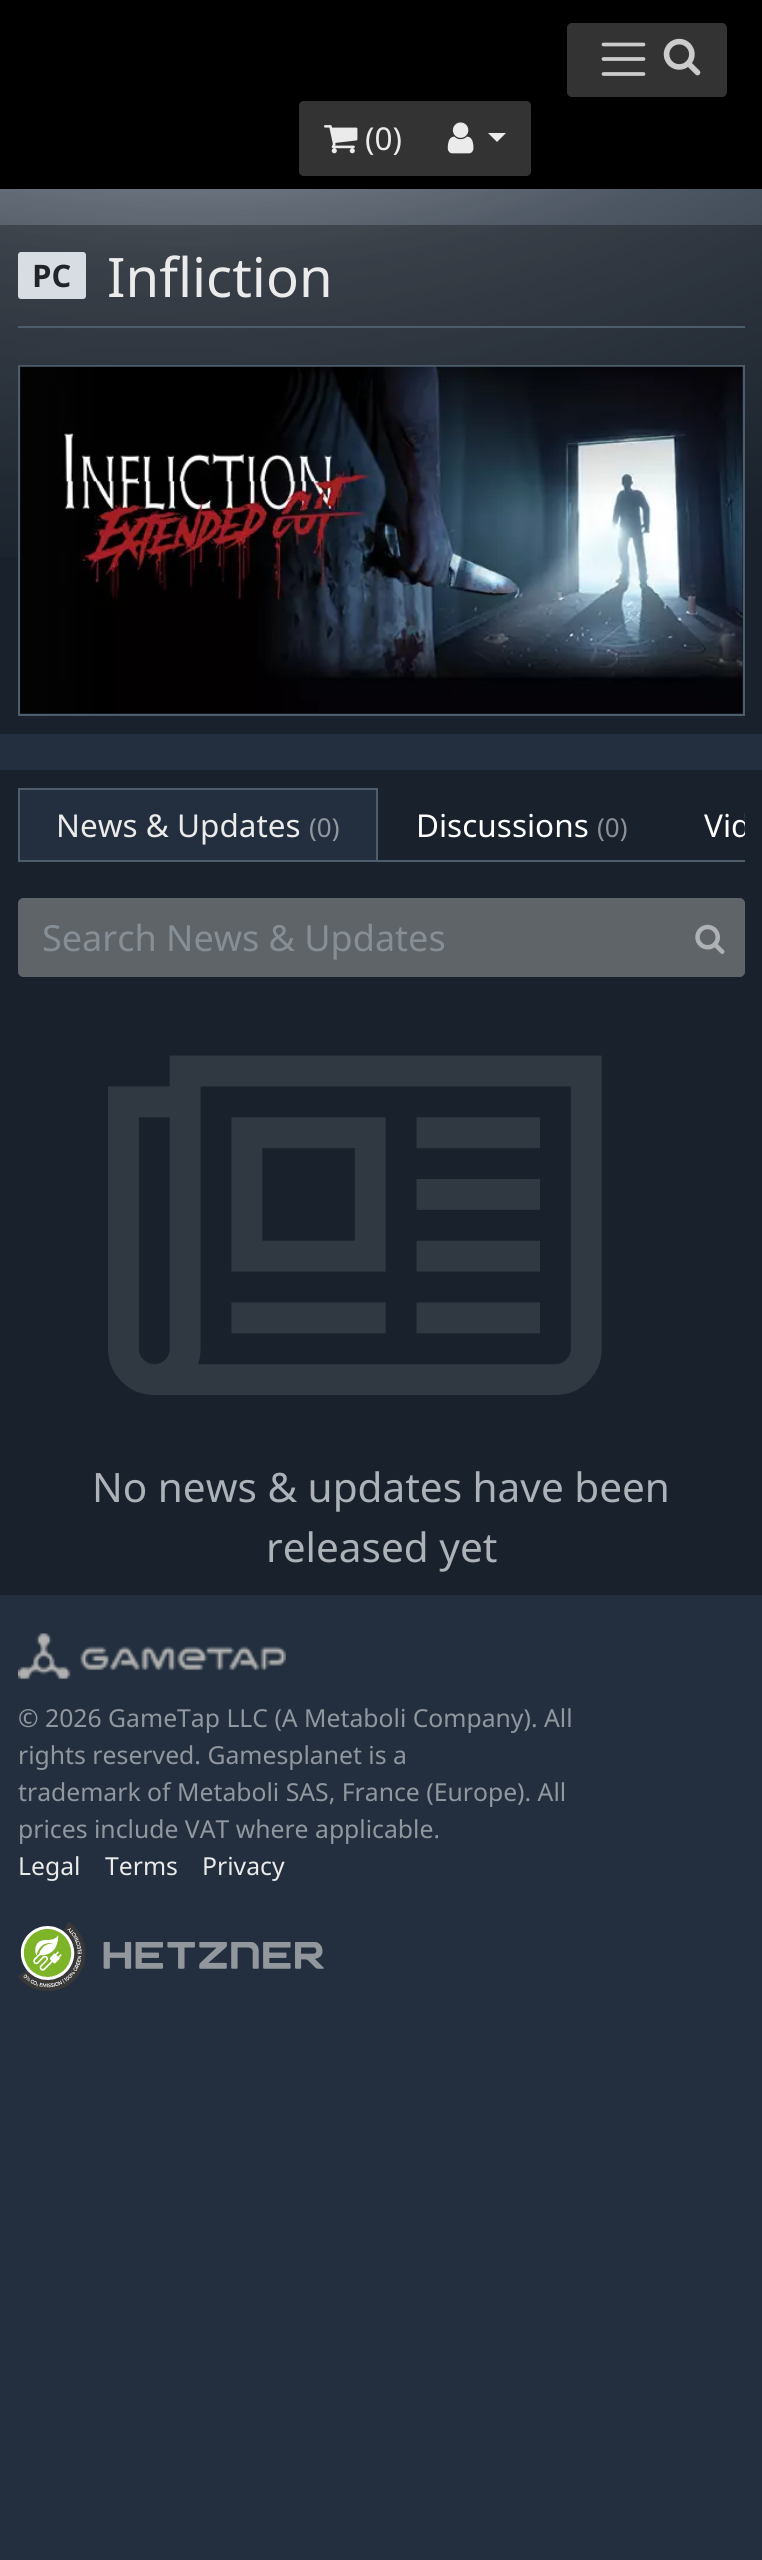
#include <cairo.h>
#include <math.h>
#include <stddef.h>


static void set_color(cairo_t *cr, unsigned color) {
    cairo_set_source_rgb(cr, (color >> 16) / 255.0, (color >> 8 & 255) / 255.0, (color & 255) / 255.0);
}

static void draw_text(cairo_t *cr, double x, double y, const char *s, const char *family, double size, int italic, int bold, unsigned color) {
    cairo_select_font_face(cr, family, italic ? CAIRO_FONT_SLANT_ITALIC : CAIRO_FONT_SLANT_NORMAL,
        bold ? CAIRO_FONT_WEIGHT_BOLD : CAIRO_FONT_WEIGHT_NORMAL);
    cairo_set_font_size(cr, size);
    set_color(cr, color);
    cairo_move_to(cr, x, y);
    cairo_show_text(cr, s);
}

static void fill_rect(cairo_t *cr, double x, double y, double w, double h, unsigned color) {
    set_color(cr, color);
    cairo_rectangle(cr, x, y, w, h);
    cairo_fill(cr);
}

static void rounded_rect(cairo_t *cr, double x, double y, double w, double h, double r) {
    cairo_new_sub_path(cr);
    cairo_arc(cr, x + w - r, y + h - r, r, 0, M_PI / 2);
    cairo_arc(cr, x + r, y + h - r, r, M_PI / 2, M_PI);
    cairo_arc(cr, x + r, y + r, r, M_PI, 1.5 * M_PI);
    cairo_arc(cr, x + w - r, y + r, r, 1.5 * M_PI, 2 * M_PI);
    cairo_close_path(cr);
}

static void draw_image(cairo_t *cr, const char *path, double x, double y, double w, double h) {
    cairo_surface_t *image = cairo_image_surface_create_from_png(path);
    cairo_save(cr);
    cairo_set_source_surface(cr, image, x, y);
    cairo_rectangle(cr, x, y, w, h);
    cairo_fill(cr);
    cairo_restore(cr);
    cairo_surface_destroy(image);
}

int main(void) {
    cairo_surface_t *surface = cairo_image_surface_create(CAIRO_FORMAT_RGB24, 762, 2560);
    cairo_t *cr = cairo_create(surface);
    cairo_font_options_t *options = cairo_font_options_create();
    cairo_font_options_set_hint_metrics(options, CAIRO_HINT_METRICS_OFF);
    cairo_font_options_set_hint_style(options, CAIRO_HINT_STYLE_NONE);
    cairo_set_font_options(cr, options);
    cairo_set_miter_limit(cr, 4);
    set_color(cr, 0x232F3E);
    cairo_paint(cr);
    draw_image(cr, "assets/img1.png", 0, 189, 762, 368);
    fill_rect(cr, 0, 0, 762, 189, 0x000000);
    set_color(cr, 0x333333);
    rounded_rect(cr, 567, 23, 160, 74, 5);
    cairo_fill(cr);
    cairo_new_path(cr);
    cairo_move_to(cr, 603.5, 44.5);
    cairo_line_to(cr, 643.5, 44.5);
    cairo_move_to(cr, 603.5, 59);
    cairo_line_to(cr, 643.5, 59);
    cairo_move_to(cr, 603.5, 74);
    cairo_line_to(cr, 643.5, 74);
    set_color(cr, 0xCCCCCC);
    cairo_set_line_width(cr, 3.7);
    cairo_set_line_cap(cr, CAIRO_LINE_CAP_ROUND);
    cairo_stroke(cr);
    draw_image(cr, "assets/img2.png", 663, 38, 38, 38);
    set_color(cr, 0x333333);
    cairo_new_path(cr);
    cairo_move_to(cr, 304, 101);
    cairo_line_to(cr, 425, 101);
    cairo_line_to(cr, 425, 176);
    cairo_line_to(cr, 304, 176);
    cairo_curve_to(cr, 301, 176, 299, 174, 299, 171);
    cairo_line_to(cr, 299, 106);
    cairo_curve_to(cr, 299, 103, 301, 101, 304, 101);
    cairo_close_path(cr);
    cairo_fill(cr);
    draw_image(cr, "assets/img3.png", 324, 125, 34, 29);
    draw_text(cr, 365, 150, "(0)", "Noto Sans", 31.5, 0, 0, 0xEBEBEB);
    set_color(cr, 0x333333);
    cairo_new_path(cr);
    cairo_move_to(cr, 423, 101);
    cairo_line_to(cr, 526, 101);
    cairo_curve_to(cr, 529, 101, 531, 103, 531, 106);
    cairo_line_to(cr, 531, 171);
    cairo_curve_to(cr, 531, 174, 529, 176, 526, 176);
    cairo_line_to(cr, 423, 176);
    cairo_close_path(cr);
    cairo_fill(cr);
    draw_image(cr, "assets/img4.png", 447, 122, 27, 32);
    set_color(cr, 0xEBEBEB);
    cairo_new_path(cr);
    cairo_move_to(cr, 488, 133);
    cairo_line_to(cr, 506, 133);
    cairo_line_to(cr, 497, 142);
    cairo_close_path(cr);
    cairo_fill(cr);
    cairo_set_source_rgba(cr, 0, 0, 0, 0.3);
    cairo_rectangle(cr, 0, 225, 762, 509);
    cairo_fill(cr);
    set_color(cr, 0xD7DDE2);
    rounded_rect(cr, 18, 252, 68, 47, 3);
    cairo_fill(cr);
    draw_text(cr, 32, 287, "PC", "Noto Sans", 31, 0, 1, 0x212529);
    fill_rect(cr, 18, 326, 727, 2, 0x4E5D6C);
    draw_text(cr, 107, 297, "Infliction", "Noto Sans", 54.5, 0, 0, 0xEBEBEB);
    cairo_rectangle(cr, 19, 366, 725, 349);
    set_color(cr, 0x4E5D6C);
    cairo_set_line_width(cr, 2);
    cairo_set_line_cap(cr, CAIRO_LINE_CAP_BUTT);
    cairo_stroke(cr);
    draw_image(cr, "assets/img5.png", 20, 366, 723, 348);
    fill_rect(cr, 0, 770, 762, 825, 0x19212C);
    fill_rect(cr, 18, 860, 727, 2, 0x4E5D6C);
    fill_rect(cr, 20, 790, 356, 70, 0x232F3E);
    cairo_save(cr);
    cairo_rectangle(cr, 18, 788, 727, 72);
    cairo_clip(cr);
    cairo_rectangle(cr, 19, 789, 358, 72);
    set_color(cr, 0x4E5D6C);
    cairo_stroke(cr);
    cairo_restore(cr);
    draw_text(cr, 56, 837, "News & Updates", "Noto Sans", 31.5, 0, 0, 0xEBEBEB);
    draw_text(cr, 309, 837, "(0)", "Noto Sans", 26, 0, 0, 0x91979F);
    draw_text(cr, 416, 837, "Discussions", "Noto Sans", 31.5, 0, 0, 0xFFFFFF);
    draw_text(cr, 597, 837, "(0)", "Noto Sans", 26, 0, 0, 0x8C9096);
    cairo_save(cr);
    cairo_rectangle(cr, 18, 788, 727, 72);
    cairo_clip(cr);
    draw_text(cr, 704, 837, "Vid", "Noto Sans", 31.5, 0, 0, 0xFFFFFF);
    cairo_restore(cr);
    set_color(cr, 0x5F6468);
    cairo_new_path(cr);
    cairo_move_to(cr, 23, 899);
    cairo_line_to(cr, 676, 899);
    cairo_line_to(cr, 676, 976);
    cairo_line_to(cr, 23, 976);
    cairo_curve_to(cr, 21, 976, 19, 974, 19, 972);
    cairo_line_to(cr, 19, 903);
    cairo_curve_to(cr, 19, 901, 21, 899, 23, 899);
    cairo_close_path(cr);
    cairo_fill_preserve(cr);
    cairo_stroke(cr);
    draw_text(cr, 42, 951, "Search News & Updates", "Noto Sans", 36, 0, 0, 0x868E96);
    set_color(cr, 0x5F6468);
    cairo_new_path(cr);
    cairo_move_to(cr, 676, 899);
    cairo_line_to(cr, 740, 899);
    cairo_curve_to(cr, 742, 899, 744, 901, 744, 903);
    cairo_line_to(cr, 744, 972);
    cairo_curve_to(cr, 744, 974, 742, 976, 740, 976);
    cairo_line_to(cr, 676, 976);
    cairo_close_path(cr);
    cairo_fill_preserve(cr);
    cairo_stroke(cr);
    draw_image(cr, "assets/img6.png", 695, 924, 30, 30);
    draw_image(cr, "assets/img7.png", 108, 1055, 494, 340);
    draw_text(cr, 92, 1502, "No news & updates have been", "Noto Sans", 40.5, 0, 0, 0xACB2B8);
    draw_text(cr, 266, 1562, "released yet", "Noto Sans", 40.5, 0, 0, 0xACB2B8);
    draw_image(cr, "assets/img8.png", 18, 1633, 268, 47);
    draw_text(cr, 18, 1727, "© 2026 GameTap LLC (A Metaboli Company). All", "Noto Sans", 24.75, 0, 0, 0x91979F);
    draw_text(cr, 18, 1764, "rights reserved. Gamesplanet is a", "Noto Sans", 24.75, 0, 0, 0x91979F);
    draw_text(cr, 18, 1801, "trademark of Metaboli SAS, France (Europe). All", "Noto Sans", 24.75, 0, 0, 0x91979F);
    draw_text(cr, 18, 1838, "prices include VAT where applicable.", "Noto Sans", 24.75, 0, 0, 0x91979F);
    draw_text(cr, 18, 1875, "Legal", "Noto Sans", 24.75, 0, 0, 0xEBEBEB);
    draw_text(cr, 105, 1875, "Terms", "Noto Sans", 24.75, 0, 0, 0xEBEBEB);
    draw_text(cr, 202, 1875, "Privacy", "Noto Sans", 24.75, 0, 0, 0xEBEBEB);
    draw_image(cr, "assets/img9.png", 18, 1922, 68, 69);
    draw_image(cr, "assets/img10.png", 103, 1942, 221, 27);
    cairo_surface_write_to_png(surface, "output.png");
    cairo_font_options_destroy(options);
    cairo_destroy(cr);
    cairo_surface_destroy(surface);
    return 0;
}
